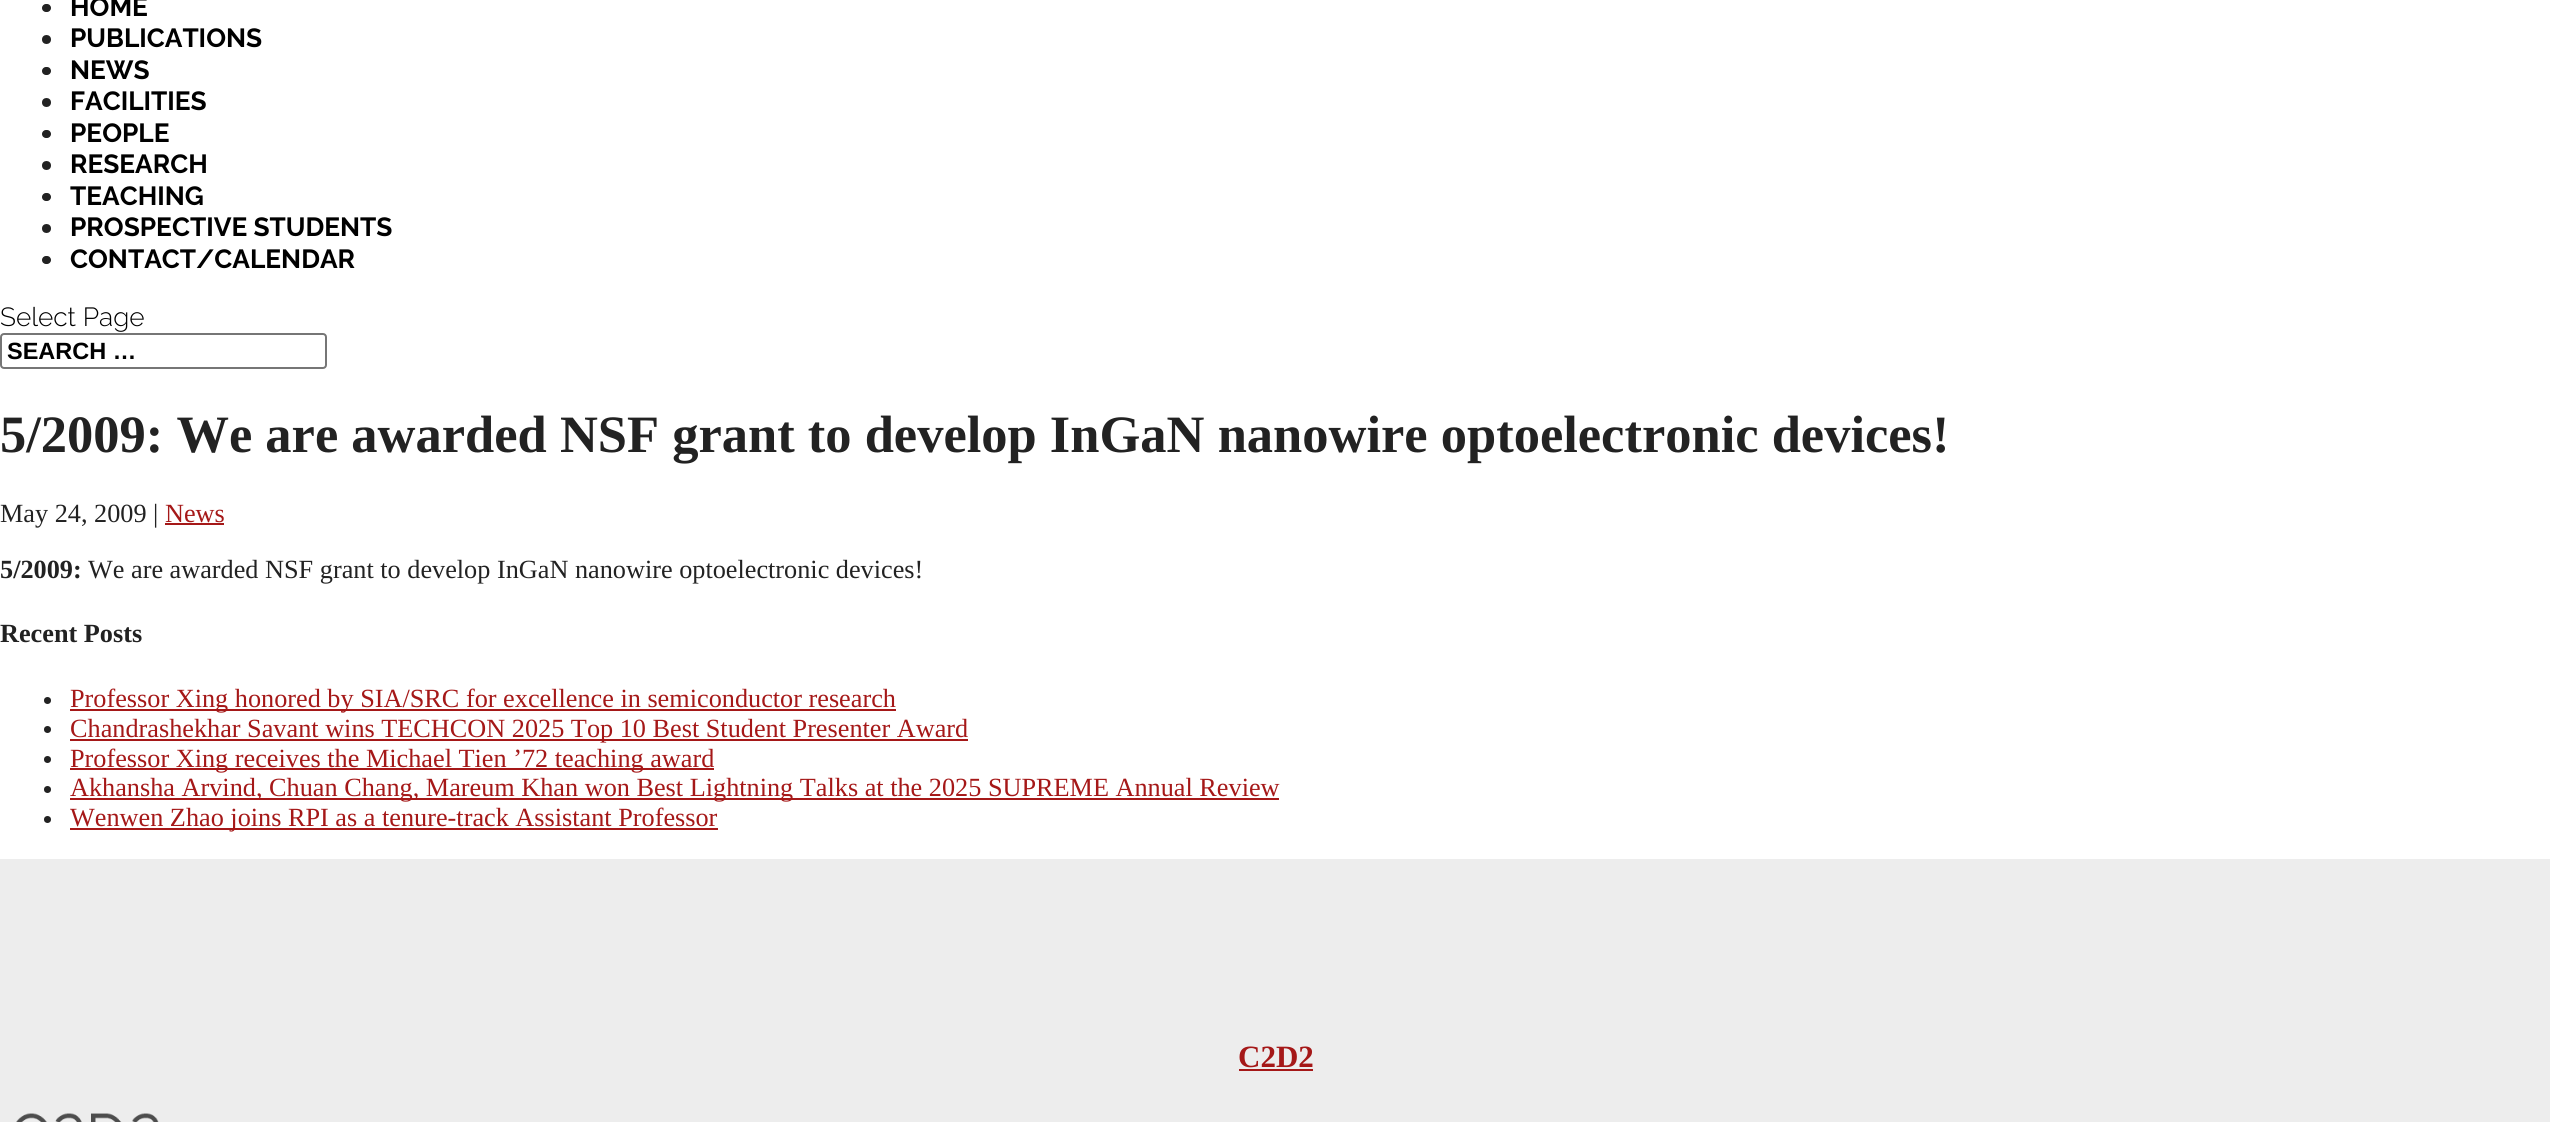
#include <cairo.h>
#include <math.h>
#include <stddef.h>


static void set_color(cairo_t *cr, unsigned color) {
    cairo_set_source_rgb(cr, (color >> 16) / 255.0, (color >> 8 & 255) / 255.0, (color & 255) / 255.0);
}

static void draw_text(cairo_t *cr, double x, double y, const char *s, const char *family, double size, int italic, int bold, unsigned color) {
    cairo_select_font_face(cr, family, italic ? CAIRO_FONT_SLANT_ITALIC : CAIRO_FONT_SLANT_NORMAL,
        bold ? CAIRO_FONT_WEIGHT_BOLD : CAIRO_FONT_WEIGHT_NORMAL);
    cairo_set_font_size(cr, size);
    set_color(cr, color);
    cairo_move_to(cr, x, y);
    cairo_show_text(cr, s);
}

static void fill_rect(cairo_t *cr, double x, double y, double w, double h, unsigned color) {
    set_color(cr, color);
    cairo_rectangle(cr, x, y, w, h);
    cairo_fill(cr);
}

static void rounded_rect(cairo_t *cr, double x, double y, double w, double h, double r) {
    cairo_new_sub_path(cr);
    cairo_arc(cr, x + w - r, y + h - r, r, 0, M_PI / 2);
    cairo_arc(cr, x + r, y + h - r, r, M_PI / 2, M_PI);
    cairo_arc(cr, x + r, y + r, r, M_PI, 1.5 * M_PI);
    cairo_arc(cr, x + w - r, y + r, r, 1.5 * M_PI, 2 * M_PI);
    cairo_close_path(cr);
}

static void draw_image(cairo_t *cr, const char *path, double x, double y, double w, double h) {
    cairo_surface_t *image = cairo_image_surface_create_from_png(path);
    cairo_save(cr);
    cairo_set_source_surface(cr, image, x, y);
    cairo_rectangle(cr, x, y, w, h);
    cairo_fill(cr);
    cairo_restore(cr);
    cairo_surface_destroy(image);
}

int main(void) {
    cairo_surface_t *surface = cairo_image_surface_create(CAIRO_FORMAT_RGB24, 2550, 1122);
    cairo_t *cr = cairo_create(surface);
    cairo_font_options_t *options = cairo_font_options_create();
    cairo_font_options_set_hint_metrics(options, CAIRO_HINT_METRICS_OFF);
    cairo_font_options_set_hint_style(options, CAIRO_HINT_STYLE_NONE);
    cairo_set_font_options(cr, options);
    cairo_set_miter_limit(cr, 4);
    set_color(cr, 0xFFFFFF);
    cairo_paint(cr);
    set_color(cr, 0x222222);
    rounded_rect(cr, 42, 4, 9, 8, 4);
    cairo_fill(cr);
    draw_text(cr, 70, 16, "HOME", "Raleway Thin", 26.25, 0, 0, 0x000000);
    set_color(cr, 0x222222);
    cairo_new_path(cr);
    cairo_arc(cr, 46.5, 39.5, 4.5, 0, 2 * M_PI);
    cairo_fill(cr);
    draw_text(cr, 70, 47, "PUBLICATIONS", "Raleway Thin", 26.25, 0, 0, 0x000000);
    set_color(cr, 0x222222);
    rounded_rect(cr, 42, 67, 9, 8, 4);
    cairo_fill(cr);
    draw_text(cr, 70, 79, "NEWS", "Raleway Thin", 26.25, 0, 0, 0x000000);
    set_color(cr, 0x222222);
    cairo_new_path(cr);
    cairo_arc(cr, 46.5, 102.5, 4.5, 0, 2 * M_PI);
    cairo_fill(cr);
    draw_text(cr, 70, 110, "FACILITIES", "Raleway Thin", 26.25, 0, 0, 0x000000);
    set_color(cr, 0x222222);
    rounded_rect(cr, 42, 130, 9, 8, 4);
    cairo_fill(cr);
    draw_text(cr, 70, 142, "PEOPLE", "Raleway Thin", 26.25, 0, 0, 0x000000);
    set_color(cr, 0x222222);
    cairo_new_path(cr);
    cairo_arc(cr, 46.5, 165.5, 4.5, 0, 2 * M_PI);
    cairo_fill(cr);
    draw_text(cr, 70, 173, "RESEARCH", "Raleway Thin", 26.25, 0, 0, 0x000000);
    set_color(cr, 0x222222);
    rounded_rect(cr, 42, 193, 9, 8, 4);
    cairo_fill(cr);
    draw_text(cr, 70, 205, "TEACHING", "Raleway Thin", 26.25, 0, 0, 0x000000);
    set_color(cr, 0x222222);
    cairo_new_path(cr);
    cairo_arc(cr, 46.5, 228.5, 4.5, 0, 2 * M_PI);
    cairo_fill(cr);
    draw_text(cr, 70, 236, "PROSPECTIVE STUDENTS", "Raleway Thin", 26.25, 0, 0, 0x000000);
    set_color(cr, 0x222222);
    rounded_rect(cr, 42, 256, 9, 8, 4);
    cairo_fill(cr);
    draw_text(cr, 70, 268, "CONTACT/CALENDAR", "Raleway Thin", 26.25, 0, 0, 0x000000);
    draw_text(cr, 0, 326, "Select Page", "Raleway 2 Thin", 26.25, 0, 0, 0x000000);
    rounded_rect(cr, 1, 334, 325, 34, 3);
    set_color(cr, 0x767676);
    cairo_stroke(cr);
    draw_text(cr, 7, 359, "SEARCH …", "Liberation Sans", 23.5, 0, 1, 0x000000);
    draw_text(cr, 0, 452, "5/2009: We are awarded NSF grant to develop InGaN nanowire optoelectronic devices!", "Liberation Serif", 52.5, 0, 1, 0x222222);
    draw_text(cr, 0, 522, "May 24, 2009 |", "Liberation Serif", 26.25, 0, 0, 0x222222);
    draw_text(cr, 165, 522, "News", "Liberation Serif", 26.25, 0, 0, 0xA51818);
    fill_rect(cr, 165, 523, 59, 2, 0xA51818);
    draw_text(cr, 0, 578, "5/2009:", "Liberation Serif", 26.25, 0, 1, 0x222222);
    draw_text(cr, 88, 578, "We are awarded NSF grant to develop InGaN nanowire optoelectronic devices!", "Liberation Serif", 26.25, 0, 0, 0x222222);
    draw_text(cr, 0, 642, "Recent Posts", "Liberation Serif", 26.25, 0, 1, 0x222222);
    cairo_new_path(cr);
    cairo_arc(cr, 47.5, 700.5, 3.5, 0, 2 * M_PI);
    cairo_fill(cr);
    fill_rect(cr, 70, 709, 826, 2, 0xA51818);
    draw_text(cr, 70, 707, "Professor Xing honored by SIA/SRC for excellence in semiconductor research", "Liberation Serif", 26.25, 0, 0, 0xA51818);
    set_color(cr, 0x222222);
    cairo_new_path(cr);
    cairo_arc(cr, 47.5, 729.5, 3.5, 0, 2 * M_PI);
    cairo_fill(cr);
    fill_rect(cr, 70, 739, 898, 2, 0xA51818);
    draw_text(cr, 70, 737, "Chandrashekhar Savant wins TECHCON 2025 Top 10 Best Student Presenter Award", "Liberation Serif", 26.25, 0, 0, 0xA51818);
    set_color(cr, 0x222222);
    cairo_new_path(cr);
    cairo_arc(cr, 47.5, 759.5, 3.5, 0, 2 * M_PI);
    cairo_fill(cr);
    fill_rect(cr, 70, 768, 644, 2, 0xA51818);
    draw_text(cr, 70, 767, "Professor Xing receives the Michael Tien ’72 teaching award", "Liberation Serif", 26.25, 0, 0, 0xA51818);
    set_color(cr, 0x222222);
    cairo_new_path(cr);
    cairo_arc(cr, 47.5, 789.5, 3.5, 0, 2 * M_PI);
    cairo_fill(cr);
    fill_rect(cr, 70, 798, 1209, 2, 0xA51818);
    draw_text(cr, 70, 796, "Akhansha Arvind, Chuan Chang, Mareum Khan won Best Lightning Talks at the 2025 SUPREME Annual Review", "Liberation Serif", 26.25, 0, 0, 0xA51818);
    set_color(cr, 0x222222);
    cairo_new_path(cr);
    cairo_arc(cr, 47.5, 819.5, 3.5, 0, 2 * M_PI);
    cairo_fill(cr);
    fill_rect(cr, 70, 828, 648, 2, 0xA51818);
    draw_text(cr, 70, 826, "Wenwen Zhao joins RPI as a tenure-track Assistant Professor", "Liberation Serif", 26.25, 0, 0, 0xA51818);
    fill_rect(cr, 0, 859, 2550, 263, 0xEDEDED);
    draw_text(cr, 1238, 1067, "C2D2", "Liberation Serif", 31, 0, 1, 0xA51818);
    fill_rect(cr, 1239, 1069, 74, 2, 0xA51818);
    draw_image(cr, "assets/img1.png", 16, 1113, 143, 9);
    cairo_surface_write_to_png(surface, "output.png");
    cairo_font_options_destroy(options);
    cairo_destroy(cr);
    cairo_surface_destroy(surface);
    return 0;
}
